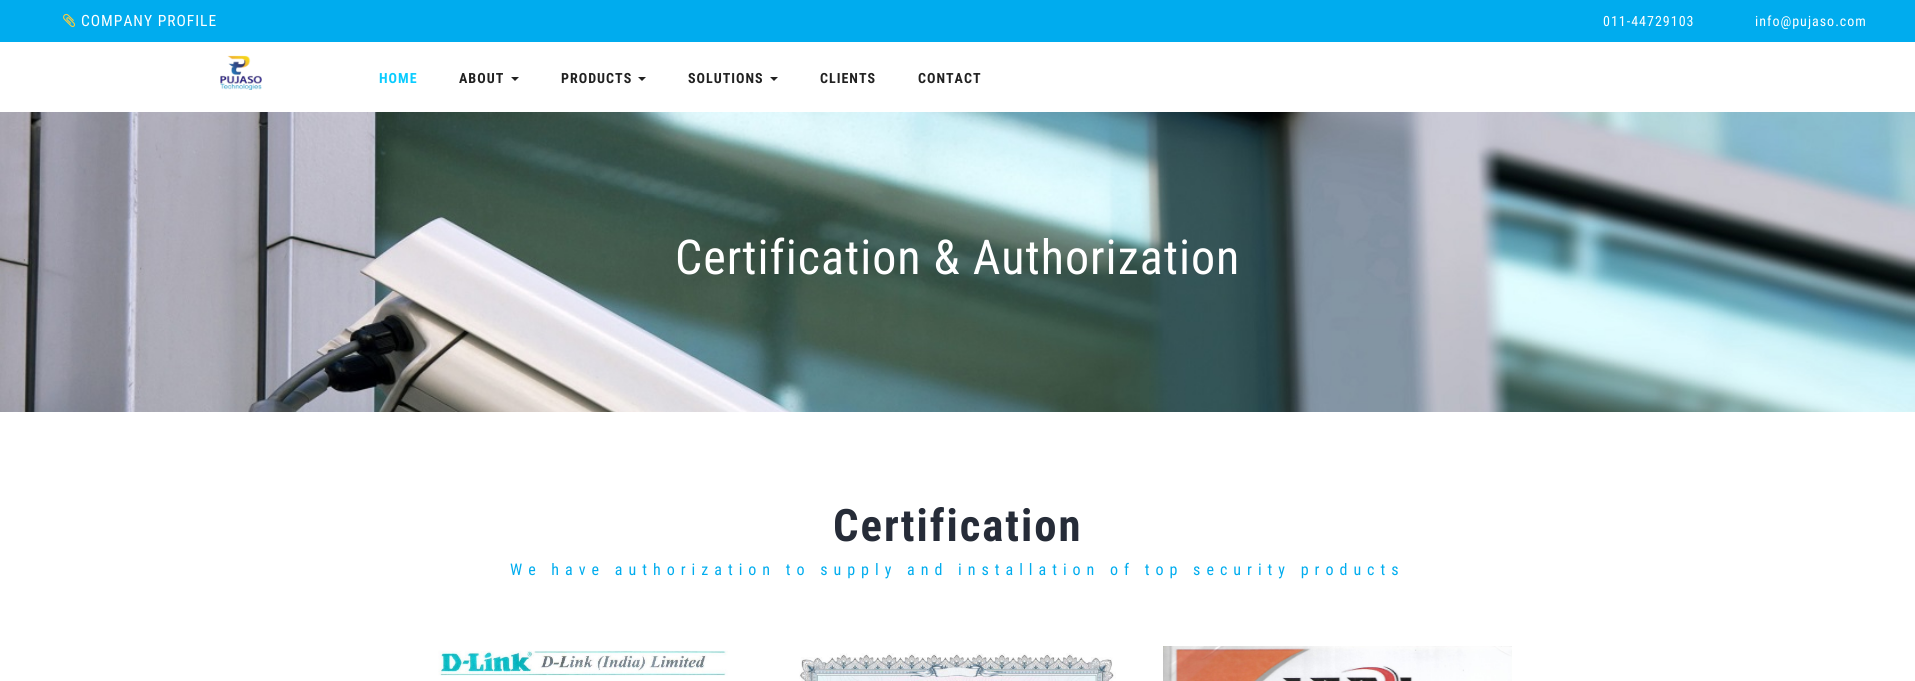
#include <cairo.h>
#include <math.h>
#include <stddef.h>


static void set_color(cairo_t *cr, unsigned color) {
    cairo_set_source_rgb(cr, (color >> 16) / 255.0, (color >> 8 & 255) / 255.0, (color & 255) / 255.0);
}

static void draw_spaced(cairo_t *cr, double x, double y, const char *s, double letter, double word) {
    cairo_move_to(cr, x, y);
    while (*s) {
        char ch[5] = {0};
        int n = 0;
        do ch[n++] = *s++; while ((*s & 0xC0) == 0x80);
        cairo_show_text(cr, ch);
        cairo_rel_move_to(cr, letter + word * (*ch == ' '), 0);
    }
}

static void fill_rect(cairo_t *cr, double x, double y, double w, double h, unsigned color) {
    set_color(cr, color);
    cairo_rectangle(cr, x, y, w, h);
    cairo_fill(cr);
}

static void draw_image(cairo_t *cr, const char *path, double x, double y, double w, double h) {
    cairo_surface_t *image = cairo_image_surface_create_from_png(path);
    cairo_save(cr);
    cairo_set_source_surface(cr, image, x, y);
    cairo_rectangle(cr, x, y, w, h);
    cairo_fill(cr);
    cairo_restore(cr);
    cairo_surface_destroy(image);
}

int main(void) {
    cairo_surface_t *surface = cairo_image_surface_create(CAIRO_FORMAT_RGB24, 1915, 681);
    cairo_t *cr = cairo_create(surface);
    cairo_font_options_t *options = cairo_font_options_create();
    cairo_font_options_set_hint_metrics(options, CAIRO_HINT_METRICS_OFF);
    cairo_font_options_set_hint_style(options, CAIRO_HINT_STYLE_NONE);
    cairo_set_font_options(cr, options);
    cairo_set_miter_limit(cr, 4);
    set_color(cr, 0xFFFFFF);
    cairo_paint(cr);
    fill_rect(cr, 0, 0, 1915, 42, 0x00ACEE);
    draw_image(cr, "assets/img1.png", 63, 13, 13, 15);
    cairo_select_font_face(cr, "Roboto Condensed", CAIRO_FONT_SLANT_NORMAL, CAIRO_FONT_WEIGHT_NORMAL);
    cairo_set_font_size(cr, 15.5);
    set_color(cr, 0xFFFFFF);
    draw_spaced(cr, 81, 26, "COMPANY PROFILE", 1, 0);
    cairo_set_font_size(cr, 14);
    draw_spaced(cr, 1603, 26, "011-44729103", 1, 0);
    draw_spaced(cr, 1755, 26, "info@pujaso.com", 1, 0);
    draw_image(cr, "assets/img2.png", 220, 55, 42, 35);
    cairo_select_font_face(cr, "Roboto Condensed", CAIRO_FONT_SLANT_NORMAL, CAIRO_FONT_WEIGHT_BOLD);
    set_color(cr, 0x0ACCFF);
    draw_spaced(cr, 379, 83, "HOME", 1, 0);
    set_color(cr, 0x212121);
    draw_spaced(cr, 459, 83, "ABOUT", 1, 0);
    cairo_new_path(cr);
    cairo_move_to(cr, 511, 77);
    cairo_line_to(cr, 519, 77);
    cairo_line_to(cr, 515, 81);
    cairo_close_path(cr);
    cairo_fill(cr);
    draw_spaced(cr, 561, 83, "PRODUCTS", 1, 0);
    cairo_new_path(cr);
    cairo_move_to(cr, 638, 77);
    cairo_line_to(cr, 646, 77);
    cairo_line_to(cr, 642, 81);
    cairo_close_path(cr);
    cairo_fill(cr);
    draw_spaced(cr, 688, 83, "SOLUTIONS", 1, 0);
    cairo_new_path(cr);
    cairo_move_to(cr, 770, 77);
    cairo_line_to(cr, 778, 77);
    cairo_line_to(cr, 774, 81);
    cairo_close_path(cr);
    cairo_fill(cr);
    draw_spaced(cr, 820, 83, "CLIENTS", 1, 0);
    draw_spaced(cr, 918, 83, "CONTACT", 1, 0);
    draw_image(cr, "assets/img3.png", 0, 112, 1915, 300);
    cairo_select_font_face(cr, "Roboto Condensed", CAIRO_FONT_SLANT_NORMAL, CAIRO_FONT_WEIGHT_NORMAL);
    cairo_set_font_size(cr, 48);
    set_color(cr, 0xFFFFFF);
    draw_spaced(cr, 675, 274, "Certification & Authorization", 1, 0);
    cairo_select_font_face(cr, "Roboto Condensed", CAIRO_FONT_SLANT_NORMAL, CAIRO_FONT_WEIGHT_BOLD);
    cairo_set_font_size(cr, 44.75);
    set_color(cr, 0x262C38);
    draw_spaced(cr, 833, 541, "Certification", 2, 0);
    cairo_select_font_face(cr, "Roboto Condensed", CAIRO_FONT_SLANT_NORMAL, CAIRO_FONT_WEIGHT_NORMAL);
    cairo_set_font_size(cr, 16);
    set_color(cr, 0x00ACEE);
    draw_spaced(cr, 510, 575, "We have authorization to supply and installation of top security products", 6, 0);
    draw_image(cr, "assets/img4.png", 438, 650, 290, 26);
    draw_image(cr, "assets/img5.png", 799, 653, 317, 28);
    draw_image(cr, "assets/img6.png", 1163, 646, 349, 35);
    cairo_surface_write_to_png(surface, "output.png");
    cairo_font_options_destroy(options);
    cairo_destroy(cr);
    cairo_surface_destroy(surface);
    return 0;
}
